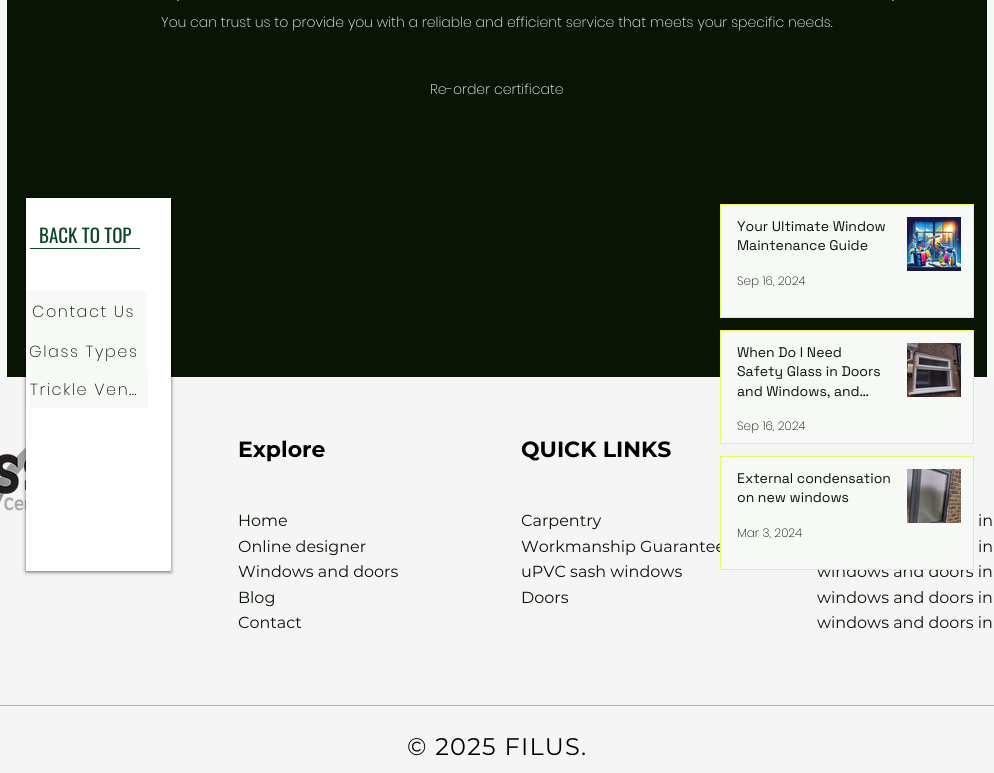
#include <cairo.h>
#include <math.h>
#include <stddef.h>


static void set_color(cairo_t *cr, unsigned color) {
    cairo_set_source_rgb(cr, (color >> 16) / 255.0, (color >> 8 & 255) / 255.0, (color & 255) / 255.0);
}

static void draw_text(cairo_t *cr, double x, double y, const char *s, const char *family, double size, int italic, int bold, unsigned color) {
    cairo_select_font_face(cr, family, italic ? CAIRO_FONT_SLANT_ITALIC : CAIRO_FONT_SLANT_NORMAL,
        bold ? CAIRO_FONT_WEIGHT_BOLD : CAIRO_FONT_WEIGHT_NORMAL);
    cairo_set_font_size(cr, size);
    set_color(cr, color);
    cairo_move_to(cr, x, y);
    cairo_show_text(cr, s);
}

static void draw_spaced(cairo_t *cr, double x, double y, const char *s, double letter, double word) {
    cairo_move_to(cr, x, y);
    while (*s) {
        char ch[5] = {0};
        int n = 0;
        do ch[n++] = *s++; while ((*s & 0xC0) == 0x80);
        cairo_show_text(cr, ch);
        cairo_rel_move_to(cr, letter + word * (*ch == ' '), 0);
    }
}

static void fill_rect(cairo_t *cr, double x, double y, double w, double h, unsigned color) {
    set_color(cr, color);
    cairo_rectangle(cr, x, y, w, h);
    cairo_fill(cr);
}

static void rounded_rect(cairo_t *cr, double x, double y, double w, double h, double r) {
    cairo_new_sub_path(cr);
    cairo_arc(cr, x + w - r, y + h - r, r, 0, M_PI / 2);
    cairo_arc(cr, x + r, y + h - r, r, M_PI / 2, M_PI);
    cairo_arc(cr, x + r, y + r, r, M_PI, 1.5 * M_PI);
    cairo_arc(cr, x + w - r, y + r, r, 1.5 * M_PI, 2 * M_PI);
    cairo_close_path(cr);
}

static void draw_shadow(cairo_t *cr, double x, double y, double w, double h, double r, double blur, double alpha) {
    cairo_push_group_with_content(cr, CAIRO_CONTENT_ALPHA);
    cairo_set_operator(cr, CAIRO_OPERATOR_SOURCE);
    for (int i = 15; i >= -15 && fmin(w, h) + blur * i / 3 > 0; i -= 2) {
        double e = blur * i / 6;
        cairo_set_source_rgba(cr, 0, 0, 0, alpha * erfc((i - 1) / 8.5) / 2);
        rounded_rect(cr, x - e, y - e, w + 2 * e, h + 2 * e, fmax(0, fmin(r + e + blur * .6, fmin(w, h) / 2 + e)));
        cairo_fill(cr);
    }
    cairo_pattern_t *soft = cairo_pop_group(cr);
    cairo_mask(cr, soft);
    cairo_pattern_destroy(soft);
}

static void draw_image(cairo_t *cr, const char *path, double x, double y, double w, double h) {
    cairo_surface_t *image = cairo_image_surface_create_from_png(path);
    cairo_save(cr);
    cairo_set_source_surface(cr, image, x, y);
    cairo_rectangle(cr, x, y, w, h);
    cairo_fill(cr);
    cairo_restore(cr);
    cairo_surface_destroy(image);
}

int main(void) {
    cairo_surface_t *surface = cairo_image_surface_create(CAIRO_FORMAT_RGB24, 994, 773);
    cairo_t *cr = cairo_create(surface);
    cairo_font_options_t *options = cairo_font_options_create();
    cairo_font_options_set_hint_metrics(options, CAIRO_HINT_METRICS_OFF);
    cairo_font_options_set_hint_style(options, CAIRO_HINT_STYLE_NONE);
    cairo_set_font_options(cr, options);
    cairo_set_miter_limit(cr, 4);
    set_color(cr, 0xF6F9F5);
    cairo_paint(cr);
    fill_rect(cr, 7, 0, 980, 377, 0x091405);
    draw_text(cr, 177, 1, ".", "Poppins ExtraLight", 14, 0, 0, 0xF6F9F5);
    draw_text(cr, 892, 1, ".", "Poppins ExtraLight", 14, 0, 0, 0xF6F9F5);
    draw_text(cr, 161, 27, "You can trust us to provide you with a reliable and efficient service that meets your specific needs.", "Poppins ExtraLight", 14, 0, 0, 0xF6F9F5);
    draw_text(cr, 430, 94, "Re-order certificate", "Poppins ExtraLight", 14, 0, 0, 0xF6F9F5);
    fill_rect(cr, 0, 377, 994, 396, 0xF5F5F5);
    draw_image(cr, "assets/img4.png", 0, 447, 26, 64);
    set_color(cr, 0x000000);
    draw_shadow(cr, 26, 199, 145, 373, 0, 2, 0.6);
    fill_rect(cr, 26, 198, 145, 373, 0xFFFFFF);
    fill_rect(cr, 30, 248, 110, 1, 0x0C4426);
    draw_text(cr, 39, 243, "BACK TO TOP", "Oswald", 19, 0, 0, 0x0C4426);
    fill_rect(cr, 26, 291, 120, 80, 0xF6F9F5);
    cairo_select_font_face(cr, "Poppins ExtraLight", CAIRO_FONT_SLANT_NORMAL, CAIRO_FONT_WEIGHT_NORMAL);
    cairo_set_font_size(cr, 16);
    set_color(cr, 0x091405);
    draw_spaced(cr, 32, 317, "Contact Us", 1.6, 0);
    draw_spaced(cr, 29, 357, "Glass Types", 1.6, 0);
    fill_rect(cr, 30, 370, 118, 38, 0xF6F9F5);
    set_color(cr, 0x091405);
    draw_spaced(cr, 30, 395, "Trickle Ven…", 1.6, 0);
    set_color(cr, 0xF6F9F5);
    cairo_rectangle(cr, 720.5, 204.5, 253, 113);
    cairo_fill_preserve(cr);
    set_color(cr, 0xE6FC5E);
    cairo_set_line_width(cr, 1);
    cairo_stroke(cr);
    draw_text(cr, 737, 231, "Your Ultimate Window", "Space Grotesk", 14, 0, 0, 0x091405);
    draw_text(cr, 737, 250, "Maintenance Guide", "Space Grotesk", 14, 0, 0, 0x091405);
    draw_text(cr, 737, 285, "Sep 16, 2024", "Poppins ExtraLight", 12, 0, 0, 0x091405);
    draw_image(cr, "assets/img1.png", 907, 217, 54, 54);
    set_color(cr, 0xF6F9F5);
    cairo_rectangle(cr, 720.5, 330.5, 253, 113);
    cairo_fill_preserve(cr);
    set_color(cr, 0xE6FC5E);
    cairo_stroke(cr);
    draw_text(cr, 737, 357, "When Do I Need", "Space Grotesk", 14, 0, 0, 0x091405);
    draw_text(cr, 737, 376, "Safety Glass in Doors", "Space Grotesk", 14, 0, 0, 0x091405);
    draw_text(cr, 737, 396, "and Windows, and…", "Space Grotesk", 14, 0, 0, 0x091405);
    draw_text(cr, 737, 430, "Sep 16, 2024", "Poppins ExtraLight", 12, 0, 0, 0x091405);
    draw_image(cr, "assets/img2.png", 907, 343, 54, 54);
    draw_text(cr, 521, 552, "Workmanship Guarantee", "Montserrat", 16, 0, 0, 0x091405);
    draw_text(cr, 817, 577, "windows and doors in", "Montserrat", 16, 0, 0, 0x091405);
    set_color(cr, 0xF6F9F5);
    cairo_rectangle(cr, 720.5, 456.5, 253, 113);
    cairo_fill_preserve(cr);
    set_color(cr, 0xE6FC5E);
    cairo_stroke(cr);
    draw_text(cr, 737, 483, "External condensation", "Space Grotesk", 14, 0, 0, 0x091405);
    draw_text(cr, 737, 502, "on new windows", "Space Grotesk", 14, 0, 0, 0x091405);
    draw_text(cr, 737, 537, "Mar 3, 2024", "Poppins ExtraLight", 12, 0, 0, 0x091405);
    draw_image(cr, "assets/img3.png", 907, 469, 54, 54);
    draw_text(cr, 238, 457, "Explore", "Montserrat", 22, 0, 1, 0x000000);
    draw_text(cr, 521, 457, "QUICK LINKS", "Montserrat", 22, 0, 1, 0x000000);
    draw_text(cr, 238, 526, "Home", "Montserrat", 16, 0, 0, 0x091405);
    draw_text(cr, 238, 552, "Online designer", "Montserrat", 16, 0, 0, 0x091405);
    draw_text(cr, 238, 577, "Windows and doors", "Montserrat", 16, 0, 0, 0x091405);
    draw_text(cr, 238, 603, "Blog", "Montserrat", 16, 0, 0, 0x091405);
    draw_text(cr, 238, 628, "Contact", "Montserrat", 16, 0, 0, 0x091405);
    draw_text(cr, 521, 526, "Carpentry", "Montserrat", 16, 0, 0, 0x091405);
    draw_text(cr, 521, 577, "uPVC sash windows", "Montserrat", 16, 0, 0, 0x091405);
    draw_text(cr, 521, 603, "Doors", "Montserrat", 16, 0, 0, 0x091405);
    draw_text(cr, 978, 526, "in", "Montserrat", 16, 0, 0, 0x091405);
    draw_text(cr, 978, 552, "in", "Montserrat", 16, 0, 0, 0x091405);
    draw_text(cr, 817, 603, "windows and doors in", "Montserrat", 16, 0, 0, 0x091405);
    draw_text(cr, 817, 628, "windows and doors in", "Montserrat", 16, 0, 0, 0x091405);
    fill_rect(cr, 0, 705, 994, 1, 0xB1B1B1);
    cairo_set_font_size(cr, 24);
    set_color(cr, 0x000000);
    draw_spaced(cr, 407, 755, "© 2025 FILUS.", 1.25, 0);
    cairo_surface_write_to_png(surface, "output.png");
    cairo_font_options_destroy(options);
    cairo_destroy(cr);
    cairo_surface_destroy(surface);
    return 0;
}
